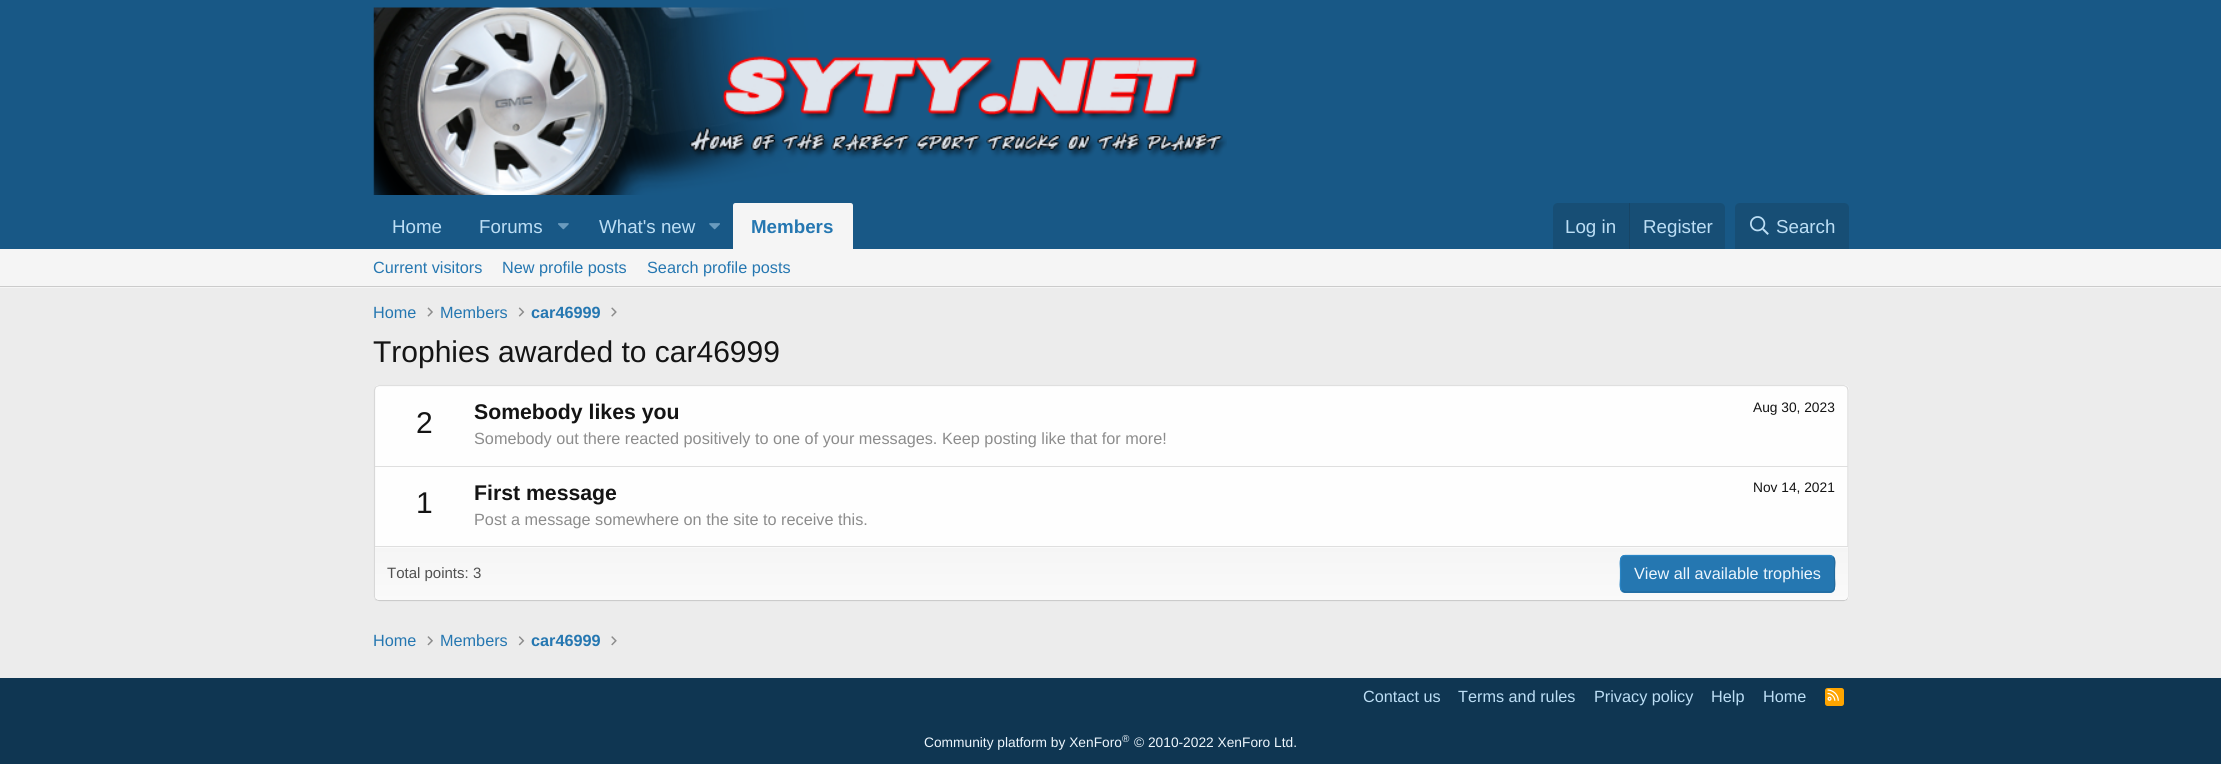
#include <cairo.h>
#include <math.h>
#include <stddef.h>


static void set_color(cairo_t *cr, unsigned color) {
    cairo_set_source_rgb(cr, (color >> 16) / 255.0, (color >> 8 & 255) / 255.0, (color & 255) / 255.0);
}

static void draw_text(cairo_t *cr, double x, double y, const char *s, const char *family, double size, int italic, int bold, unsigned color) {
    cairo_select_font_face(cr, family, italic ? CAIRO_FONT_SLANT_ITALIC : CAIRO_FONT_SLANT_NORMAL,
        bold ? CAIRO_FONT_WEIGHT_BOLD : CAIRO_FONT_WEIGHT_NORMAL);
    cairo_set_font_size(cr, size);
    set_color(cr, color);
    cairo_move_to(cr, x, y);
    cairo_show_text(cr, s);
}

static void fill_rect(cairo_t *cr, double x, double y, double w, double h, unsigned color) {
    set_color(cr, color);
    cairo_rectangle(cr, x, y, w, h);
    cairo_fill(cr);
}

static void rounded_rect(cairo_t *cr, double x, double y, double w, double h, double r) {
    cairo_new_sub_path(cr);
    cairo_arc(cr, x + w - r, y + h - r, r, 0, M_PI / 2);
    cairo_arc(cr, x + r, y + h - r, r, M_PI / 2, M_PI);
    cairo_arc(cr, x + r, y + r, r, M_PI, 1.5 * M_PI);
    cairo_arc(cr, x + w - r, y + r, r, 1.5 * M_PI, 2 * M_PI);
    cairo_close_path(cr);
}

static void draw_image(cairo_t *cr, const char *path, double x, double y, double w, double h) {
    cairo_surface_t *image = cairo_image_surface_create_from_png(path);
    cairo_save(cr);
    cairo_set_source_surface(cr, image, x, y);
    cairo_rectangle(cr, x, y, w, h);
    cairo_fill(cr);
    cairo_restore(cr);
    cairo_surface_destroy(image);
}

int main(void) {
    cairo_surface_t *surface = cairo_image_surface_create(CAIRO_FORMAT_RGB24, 2221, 764);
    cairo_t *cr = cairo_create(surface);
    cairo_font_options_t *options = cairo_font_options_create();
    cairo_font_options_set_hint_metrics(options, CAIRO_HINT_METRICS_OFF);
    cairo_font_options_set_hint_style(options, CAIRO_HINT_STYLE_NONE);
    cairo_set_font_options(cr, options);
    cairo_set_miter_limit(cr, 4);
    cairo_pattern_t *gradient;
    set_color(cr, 0xECECEC);
    cairo_paint(cr);
    fill_rect(cr, 0, 0, 2221, 249, 0x185886);
    draw_image(cr, "assets/img1.png", 373, 7, 854, 188);
    draw_text(cr, 392, 233, "Home", "Liberation Sans", 18.75, 0, 0, 0xBCDEF5);
    draw_text(cr, 479, 233, "Forums", "Liberation Sans", 18.75, 0, 0, 0xBCDEF5);
    draw_image(cr, "assets/img2.png", 558, 223, 11, 7);
    draw_text(cr, 599, 233, "What's new", "Liberation Sans", 18.75, 0, 0, 0xBCDEF5);
    draw_image(cr, "assets/img3.png", 709, 223, 11, 7);
    set_color(cr, 0xF5F5F5);
    cairo_new_path(cr);
    cairo_move_to(cr, 735.5, 203);
    cairo_line_to(cr, 850.5, 203);
    cairo_curve_to(cr, 852, 203, 853, 204, 853, 205.5);
    cairo_line_to(cr, 853, 249);
    cairo_line_to(cr, 733, 249);
    cairo_line_to(cr, 733, 205.5);
    cairo_curve_to(cr, 733, 204, 734, 203, 735.5, 203);
    cairo_close_path(cr);
    cairo_fill(cr);
    draw_text(cr, 751, 233, "Members", "Liberation Sans", 18.75, 0, 1, 0x2577B1);
    set_color(cr, 0x174E75);
    cairo_new_path(cr);
    cairo_move_to(cr, 1558, 203);
    cairo_line_to(cr, 1720, 203);
    cairo_curve_to(cr, 1723, 203, 1725, 205, 1725, 208);
    cairo_line_to(cr, 1725, 249);
    cairo_line_to(cr, 1553, 249);
    cairo_line_to(cr, 1553, 208);
    cairo_curve_to(cr, 1553, 205, 1555, 203, 1558, 203);
    cairo_close_path(cr);
    cairo_fill(cr);
    draw_text(cr, 1565, 233, "Log in", "Liberation Sans", 18.75, 0, 0, 0xBCDEF5);
    fill_rect(cr, 1629, 203, 1, 46, 0x174566);
    draw_text(cr, 1643, 233, "Register", "Liberation Sans", 18.75, 0, 0, 0xBCDEF5);
    set_color(cr, 0x174E75);
    cairo_new_path(cr);
    cairo_move_to(cr, 1740, 203);
    cairo_line_to(cr, 1844, 203);
    cairo_curve_to(cr, 1847, 203, 1849, 205, 1849, 208);
    cairo_line_to(cr, 1849, 249);
    cairo_line_to(cr, 1735, 249);
    cairo_line_to(cr, 1735, 208);
    cairo_curve_to(cr, 1735, 205, 1737, 203, 1740, 203);
    cairo_close_path(cr);
    cairo_fill(cr);
    draw_image(cr, "assets/img4.png", 1750, 216, 19, 19);
    draw_text(cr, 1776, 233, "Search", "Liberation Sans", 18.75, 0, 0, 0xBCDEF5);
    fill_rect(cr, 0, 249, 2221, 39, 0xF5F5F5);
    fill_rect(cr, 0, 286, 2221, 1, 0xCBCBCB);
    draw_text(cr, 373, 273, "Current visitors", "Liberation Sans", 16.25, 0, 0, 0x2577B1);
    draw_text(cr, 502, 273, "New profile posts", "Liberation Sans", 16.25, 0, 0, 0x2577B1);
    draw_text(cr, 647, 273, "Search profile posts", "Liberation Sans", 16.25, 0, 0, 0x2577B1);
    draw_text(cr, 373, 318, "Home", "Liberation Sans", 16.25, 0, 0, 0x2577B1);
    draw_image(cr, "assets/img5.png", 427, 307, 6, 10);
    draw_text(cr, 440, 318, "Members", "Liberation Sans", 16.25, 0, 0, 0x2577B1);
    draw_image(cr, "assets/img6.png", 518, 307, 7, 10);
    draw_text(cr, 531, 318, "car46999", "Liberation Sans", 16.25, 0, 1, 0x2577B1);
    draw_image(cr, "assets/img7.png", 611, 307, 6, 10);
    draw_text(cr, 373, 362, "Trophies awarded to car46999", "Liberation Sans", 30, 0, 0, 0x141414);
    set_color(cr, 0xFEFEFE);
    rounded_rect(cr, 374, 385, 1475, 216, 5);
    cairo_fill(cr);
    cairo_new_path(cr);
    cairo_move_to(cr, 375.5, 387);
    cairo_line_to(cr, 379, 385.5);
    cairo_line_to(cr, 1844, 385.5);
    cairo_line_to(cr, 1847, 387);
    set_color(cr, 0xDFDFDF);
    cairo_set_line_width(cr, 1.2);
    cairo_stroke(cr);
    cairo_new_path(cr);
    cairo_move_to(cr, 1847, 387);
    cairo_line_to(cr, 1848, 390);
    cairo_line_to(cr, 1848, 596.5);
    cairo_line_to(cr, 1847, 599.5);
    set_color(cr, 0xD8D8D8);
    cairo_stroke(cr);
    cairo_new_path(cr);
    cairo_move_to(cr, 1847, 599.5);
    cairo_line_to(cr, 1844, 600.5);
    cairo_line_to(cr, 379, 600.5);
    cairo_line_to(cr, 375.5, 599.5);
    set_color(cr, 0xCBCBCB);
    cairo_stroke(cr);
    cairo_new_path(cr);
    cairo_move_to(cr, 375.5, 599.5);
    cairo_line_to(cr, 374.5, 596.5);
    cairo_line_to(cr, 374.5, 424.5);
    cairo_line_to(cr, 374.5, 390);
    cairo_line_to(cr, 375.5, 387);
    set_color(cr, 0xD8D8D8);
    cairo_stroke(cr);
    draw_text(cr, 416, 433, "2", "Liberation Sans", 30, 0, 0, 0x141414);
    draw_text(cr, 474, 419, "Somebody likes you", "Liberation Sans", 21.25, 0, 1, 0x141414);
    draw_text(cr, 1753, 412, "Aug 30, 2023", "Liberation Sans", 13.75, 0, 0, 0x141414);
    draw_text(cr, 474, 444, "Somebody out there reacted positively to one of your messages. Keep posting like that for more!", "Liberation Sans", 16.25, 0, 0, 0x8C8C8C);
    fill_rect(cr, 375, 466, 1473, 1, 0xDFDFDF);
    draw_text(cr, 416, 513, "1", "Liberation Sans", 30, 0, 0, 0x141414);
    draw_text(cr, 474, 500, "First message", "Liberation Sans", 21.25, 0, 1, 0x141414);
    draw_text(cr, 1753, 492, "Nov 14, 2021", "Liberation Sans", 13.75, 0, 0, 0x141414);
    draw_text(cr, 474, 525, "Post a message somewhere on the site to receive this.", "Liberation Sans", 16.25, 0, 0, 0x8C8C8C);
    gradient = cairo_pattern_create_linear(1111, 495, 1111, 548);
    cairo_pattern_add_color_stop_rgba(gradient, 0, 0.961, 0.961, 0.961, 1);
    cairo_pattern_add_color_stop_rgba(gradient, 1, 0.98, 0.98, 0.98, 1);
    cairo_set_source(cr, gradient);
    cairo_pattern_destroy(gradient);
    cairo_rectangle(cr, 375, 547, 1473, 1);
    cairo_fill(cr);
    gradient = cairo_pattern_create_linear(1111, 547, 1111, 600);
    cairo_pattern_add_color_stop_rgba(gradient, 0, 0.961, 0.961, 0.961, 1);
    cairo_pattern_add_color_stop_rgba(gradient, 1, 0.98, 0.98, 0.98, 1);
    cairo_set_source(cr, gradient);
    cairo_pattern_destroy(gradient);
    cairo_new_path(cr);
    cairo_move_to(cr, 375, 548);
    cairo_line_to(cr, 1848, 548);
    cairo_line_to(cr, 1848, 596);
    cairo_curve_to(cr, 1848, 598, 1846, 600, 1844, 600);
    cairo_line_to(cr, 379, 600);
    cairo_curve_to(cr, 377, 600, 375, 598, 375, 596);
    cairo_close_path(cr);
    cairo_fill(cr);
    fill_rect(cr, 375, 546, 1473, 1, 0xDFDFDF);
    draw_text(cr, 387, 578, "Total points: 3", "Liberation Sans", 15, 0, 0, 0x505050);
    set_color(cr, 0x2577B1);
    rounded_rect(cr, 1620, 555, 215, 38, 5);
    cairo_fill(cr);
    cairo_new_path(cr);
    cairo_move_to(cr, 1833, 557);
    cairo_curve_to(cr, 1836, 559.5, 1834.5, 566, 1834.5, 569);
    cairo_line_to(cr, 1834.5, 578.5);
    cairo_curve_to(cr, 1834.5, 581.5, 1836.5, 592, 1830, 592);
    cairo_line_to(cr, 1625, 592);
    cairo_line_to(cr, 1622, 590.5);
    set_color(cr, 0x21699C);
    cairo_stroke(cr);
    cairo_new_path(cr);
    cairo_move_to(cr, 1622, 590.5);
    cairo_curve_to(cr, 1619, 588, 1620.5, 581.5, 1620.5, 578.5);
    cairo_line_to(cr, 1620.5, 569);
    cairo_curve_to(cr, 1620.5, 566, 1618.5, 555.5, 1625, 555.5);
    cairo_line_to(cr, 1830, 555.5);
    cairo_line_to(cr, 1833, 557);
    set_color(cr, 0x2985C6);
    cairo_stroke(cr);
    draw_text(cr, 1634, 579, "View all available trophies", "Liberation Sans", 16.25, 0, 0, 0xEDF6FD);
    draw_text(cr, 373, 646, "Home", "Liberation Sans", 16.25, 0, 0, 0x2577B1);
    draw_image(cr, "assets/img8.png", 427, 636, 6, 10);
    draw_text(cr, 440, 646, "Members", "Liberation Sans", 16.25, 0, 0, 0x2577B1);
    draw_image(cr, "assets/img9.png", 518, 636, 7, 10);
    draw_text(cr, 531, 646, "car46999", "Liberation Sans", 16.25, 0, 1, 0x2577B1);
    draw_image(cr, "assets/img10.png", 611, 636, 6, 10);
    fill_rect(cr, 0, 678, 2221, 86, 0x0F3652);
    draw_text(cr, 1363, 702, "Contact us", "Liberation Sans", 16.25, 0, 0, 0xBCDEF5);
    draw_text(cr, 1458, 702, "Terms and rules", "Liberation Sans", 16.25, 0, 0, 0xBCDEF5);
    draw_text(cr, 1594, 702, "Privacy policy", "Liberation Sans", 16.25, 0, 0, 0xBCDEF5);
    draw_text(cr, 1711, 702, "Help", "Liberation Sans", 16.25, 0, 0, 0xBCDEF5);
    draw_text(cr, 1763, 702, "Home", "Liberation Sans", 16.25, 0, 0, 0xBCDEF5);
    set_color(cr, 0xFFA500);
    rounded_rect(cr, 1825, 688, 19, 18, 2.5);
    cairo_fill(cr);
    draw_image(cr, "assets/img11.png", 1827, 689, 12, 12);
    draw_text(cr, 924, 747, "Community platform by XenForo", "Liberation Sans", 13.75, 0, 0, 0xEDF6FD);
    draw_text(cr, 1122, 742, "®", "Liberation Sans", 10, 0, 0, 0xEDF6FD);
    draw_text(cr, 1134, 747, "© 2010-2022 XenForo Ltd.", "Liberation Sans", 13.75, 0, 0, 0xEDF6FD);
    cairo_surface_write_to_png(surface, "output.png");
    cairo_font_options_destroy(options);
    cairo_destroy(cr);
    cairo_surface_destroy(surface);
    return 0;
}
